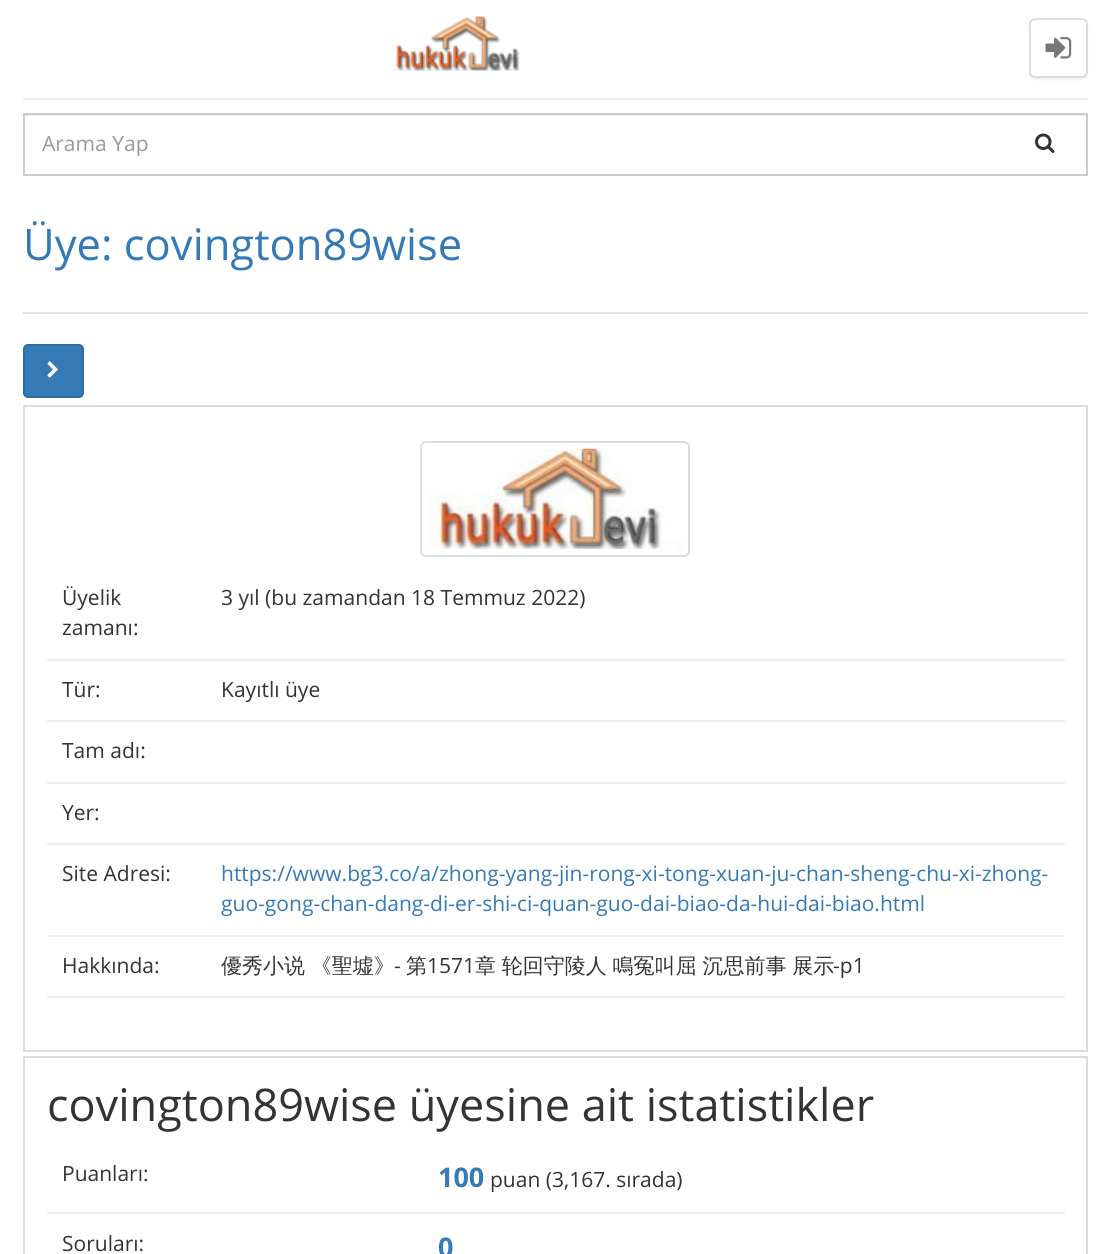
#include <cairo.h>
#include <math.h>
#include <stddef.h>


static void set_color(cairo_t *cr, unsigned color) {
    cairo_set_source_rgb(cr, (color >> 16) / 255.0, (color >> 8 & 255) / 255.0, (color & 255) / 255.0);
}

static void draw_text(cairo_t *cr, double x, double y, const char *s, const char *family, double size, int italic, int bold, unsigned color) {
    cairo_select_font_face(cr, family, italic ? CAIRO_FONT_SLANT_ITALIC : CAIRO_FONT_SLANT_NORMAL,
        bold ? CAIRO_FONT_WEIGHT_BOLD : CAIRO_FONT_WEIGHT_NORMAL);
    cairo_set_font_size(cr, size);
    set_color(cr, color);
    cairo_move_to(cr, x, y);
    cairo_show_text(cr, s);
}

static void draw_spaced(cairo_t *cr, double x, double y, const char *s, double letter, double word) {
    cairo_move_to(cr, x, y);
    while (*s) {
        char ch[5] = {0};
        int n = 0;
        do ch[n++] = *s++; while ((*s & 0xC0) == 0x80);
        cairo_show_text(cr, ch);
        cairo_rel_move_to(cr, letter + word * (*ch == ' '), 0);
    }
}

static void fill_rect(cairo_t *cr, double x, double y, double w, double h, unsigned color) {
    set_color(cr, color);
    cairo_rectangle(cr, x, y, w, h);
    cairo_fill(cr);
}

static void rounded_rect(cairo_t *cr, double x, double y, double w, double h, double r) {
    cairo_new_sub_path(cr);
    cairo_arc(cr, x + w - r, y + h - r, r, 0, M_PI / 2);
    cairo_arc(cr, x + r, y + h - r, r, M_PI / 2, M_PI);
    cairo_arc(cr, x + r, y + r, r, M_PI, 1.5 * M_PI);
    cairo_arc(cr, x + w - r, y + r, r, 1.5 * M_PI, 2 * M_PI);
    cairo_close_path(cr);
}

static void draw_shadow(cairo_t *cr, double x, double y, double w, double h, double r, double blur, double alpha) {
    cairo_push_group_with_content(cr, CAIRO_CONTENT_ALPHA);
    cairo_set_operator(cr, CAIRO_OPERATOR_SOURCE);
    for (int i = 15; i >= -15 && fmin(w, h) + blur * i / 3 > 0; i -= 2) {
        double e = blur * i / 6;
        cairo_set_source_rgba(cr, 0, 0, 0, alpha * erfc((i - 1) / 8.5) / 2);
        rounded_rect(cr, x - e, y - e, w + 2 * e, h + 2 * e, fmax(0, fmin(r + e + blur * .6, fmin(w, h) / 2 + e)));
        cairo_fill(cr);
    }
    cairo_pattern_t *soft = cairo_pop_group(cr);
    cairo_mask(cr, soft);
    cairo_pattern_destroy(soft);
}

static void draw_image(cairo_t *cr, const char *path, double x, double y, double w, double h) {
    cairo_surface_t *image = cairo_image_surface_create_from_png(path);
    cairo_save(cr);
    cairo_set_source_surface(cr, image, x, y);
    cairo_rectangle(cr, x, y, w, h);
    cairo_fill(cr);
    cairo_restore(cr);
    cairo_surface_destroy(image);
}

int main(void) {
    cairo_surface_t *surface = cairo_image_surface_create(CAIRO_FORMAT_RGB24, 1109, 1254);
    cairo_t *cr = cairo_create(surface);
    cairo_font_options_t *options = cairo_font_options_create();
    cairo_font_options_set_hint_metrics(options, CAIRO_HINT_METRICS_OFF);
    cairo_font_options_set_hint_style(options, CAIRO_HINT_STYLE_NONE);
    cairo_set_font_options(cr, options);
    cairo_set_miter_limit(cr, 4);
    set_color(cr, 0xFFFFFF);
    cairo_paint(cr);
    draw_image(cr, "assets/img1.png", 393, 16, 127, 55);
    set_color(cr, 0x000000);
    draw_shadow(cr, 1029, 20, 59, 60, 6, 1, 0.05);
    set_color(cr, 0xFFFFFF);
    rounded_rect(cr, 1030, 19, 57, 58, 5);
    cairo_fill_preserve(cr);
    set_color(cr, 0xDDDDDD);
    cairo_stroke(cr);
    draw_image(cr, "assets/img2.png", 1045, 37, 27, 22);
    fill_rect(cr, 23, 98, 1065, 2, 0xEEEEEE);
    fill_rect(cr, 24, 115, 1062, 1, 0xECECEC);
    cairo_rectangle(cr, 24, 114, 1063, 61);
    set_color(cr, 0xCCCCCC);
    cairo_stroke(cr);
    draw_text(cr, 42, 151, "Arama Yap", "Open Sans", 21, 0, 0, 0x999999);
    draw_image(cr, "assets/img3.png", 1035, 133, 20, 20);
    fill_rect(cr, 23, 312, 1065, 2, 0xE2E2E2);
    draw_text(cr, 23, 260, "Üye: covington89wise", "Open Sans", 43.5, 0, 0, 0x337AB7);
    rounded_rect(cr, 24, 345, 59, 52, 4);
    cairo_fill_preserve(cr);
    set_color(cr, 0x2E6DA4);
    cairo_stroke(cr);
    draw_image(cr, "assets/img4.png", 47, 361, 11, 17);
    cairo_rectangle(cr, 24, 406, 1063, 645);
    set_color(cr, 0xDDDDDD);
    cairo_stroke(cr);
    rounded_rect(cr, 421, 442, 268, 114, 5);
    cairo_stroke(cr);
    draw_image(cr, "assets/img5.png", 428, 448, 254, 101);
    draw_text(cr, 62, 605, "Üyelik", "Open Sans", 21, 0, 0, 0x333333);
    draw_text(cr, 62, 635, "zamanı:", "Open Sans", 21, 0, 0, 0x333333);
    fill_rect(cr, 47, 659, 1018, 2, 0xEEEEEE);
    draw_text(cr, 221, 605, "3 yıl (bu zamandan 18 Temmuz 2022)", "Open Sans", 21, 0, 0, 0x333333);
    draw_text(cr, 62, 697, "Tür:", "Open Sans", 21, 0, 0, 0x333333);
    fill_rect(cr, 47, 720, 1018, 2, 0xEEEEEE);
    draw_text(cr, 221, 697, "Kayıtlı üye", "Open Sans", 21, 0, 0, 0x333333);
    draw_text(cr, 62, 758, "Tam adı:", "Open Sans", 21, 0, 0, 0x333333);
    fill_rect(cr, 47, 782, 1018, 2, 0xEEEEEE);
    draw_text(cr, 62, 820, "Yer:", "Open Sans", 21, 0, 0, 0x333333);
    fill_rect(cr, 47, 843, 1018, 2, 0xEEEEEE);
    draw_text(cr, 62, 881, "Site Adresi:", "Open Sans", 21, 0, 0, 0x333333);
    fill_rect(cr, 47, 935, 1018, 2, 0xEEEEEE);
    draw_text(cr, 221, 881, "https://www.bg3.co/a/zhong-yang-jin-rong-xi-tong-xuan-ju-chan-sheng-chu-xi-zhong-", "Open Sans", 21, 0, 0, 0x337AB7);
    draw_text(cr, 221, 911, "guo-gong-chan-dang-di-er-shi-ci-quan-guo-dai-biao-da-hui-dai-biao.html", "Open Sans", 21, 0, 0, 0x337AB7);
    draw_text(cr, 62, 973, "Hakkında:", "Open Sans", 21, 0, 0, 0x333333);
    fill_rect(cr, 47, 996, 1018, 2, 0xEEEEEE);
    cairo_select_font_face(cr, "WenQuanYi Zen Hei Medium", CAIRO_FONT_SLANT_NORMAL, CAIRO_FONT_WEIGHT_NORMAL);
    set_color(cr, 0x333333);
    draw_spaced(cr, 221, 973, "優秀小说 《聖墟》", 0, -0.5);
    draw_text(cr, 394, 973, "-", "Open Sans", 21, 0, 0, 0x333333);
    draw_text(cr, 406, 973, "第", "WenQuanYi Zen Hei Medium", 21, 0, 0, 0x333333);
    draw_text(cr, 427, 973, "1571", "Open Sans", 21, 0, 0, 0x333333);
    cairo_select_font_face(cr, "WenQuanYi Zen Hei Medium", CAIRO_FONT_SLANT_NORMAL, CAIRO_FONT_WEIGHT_NORMAL);
    draw_spaced(cr, 475, 973, "章 轮回守陵人 鳴冤叫屈 沉思前事 展示", 0, -0.5);
    draw_text(cr, 833, 973, "-p1", "Open Sans", 21, 0, 0, 0x333333);
    cairo_rectangle(cr, 24, 1057, 1063, 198);
    set_color(cr, 0xDDDDDD);
    cairo_stroke(cr);
    draw_text(cr, 47, 1121, "covington89wise üyesine ait istatistikler", "Open Sans", 45, 0, 0, 0x333333);
    draw_text(cr, 62, 1181, "Puanları:", "Open Sans", 21, 0, 0, 0x333333);
    fill_rect(cr, 47, 1212, 1018, 2, 0xEEEEEE);
    draw_text(cr, 438, 1187, "100", "Open Sans", 27, 0, 1, 0x337AB7);
    draw_text(cr, 490, 1187, "puan (3,167. sırada)", "Open Sans", 21, 0, 0, 0x333333);
    draw_text(cr, 62, 1251, "Soruları:", "Open Sans", 21, 0, 0, 0x333333);
    draw_text(cr, 438, 1257, "0", "Open Sans", 27, 0, 1, 0x337AB7);
    cairo_surface_write_to_png(surface, "output.png");
    cairo_font_options_destroy(options);
    cairo_destroy(cr);
    cairo_surface_destroy(surface);
    return 0;
}
